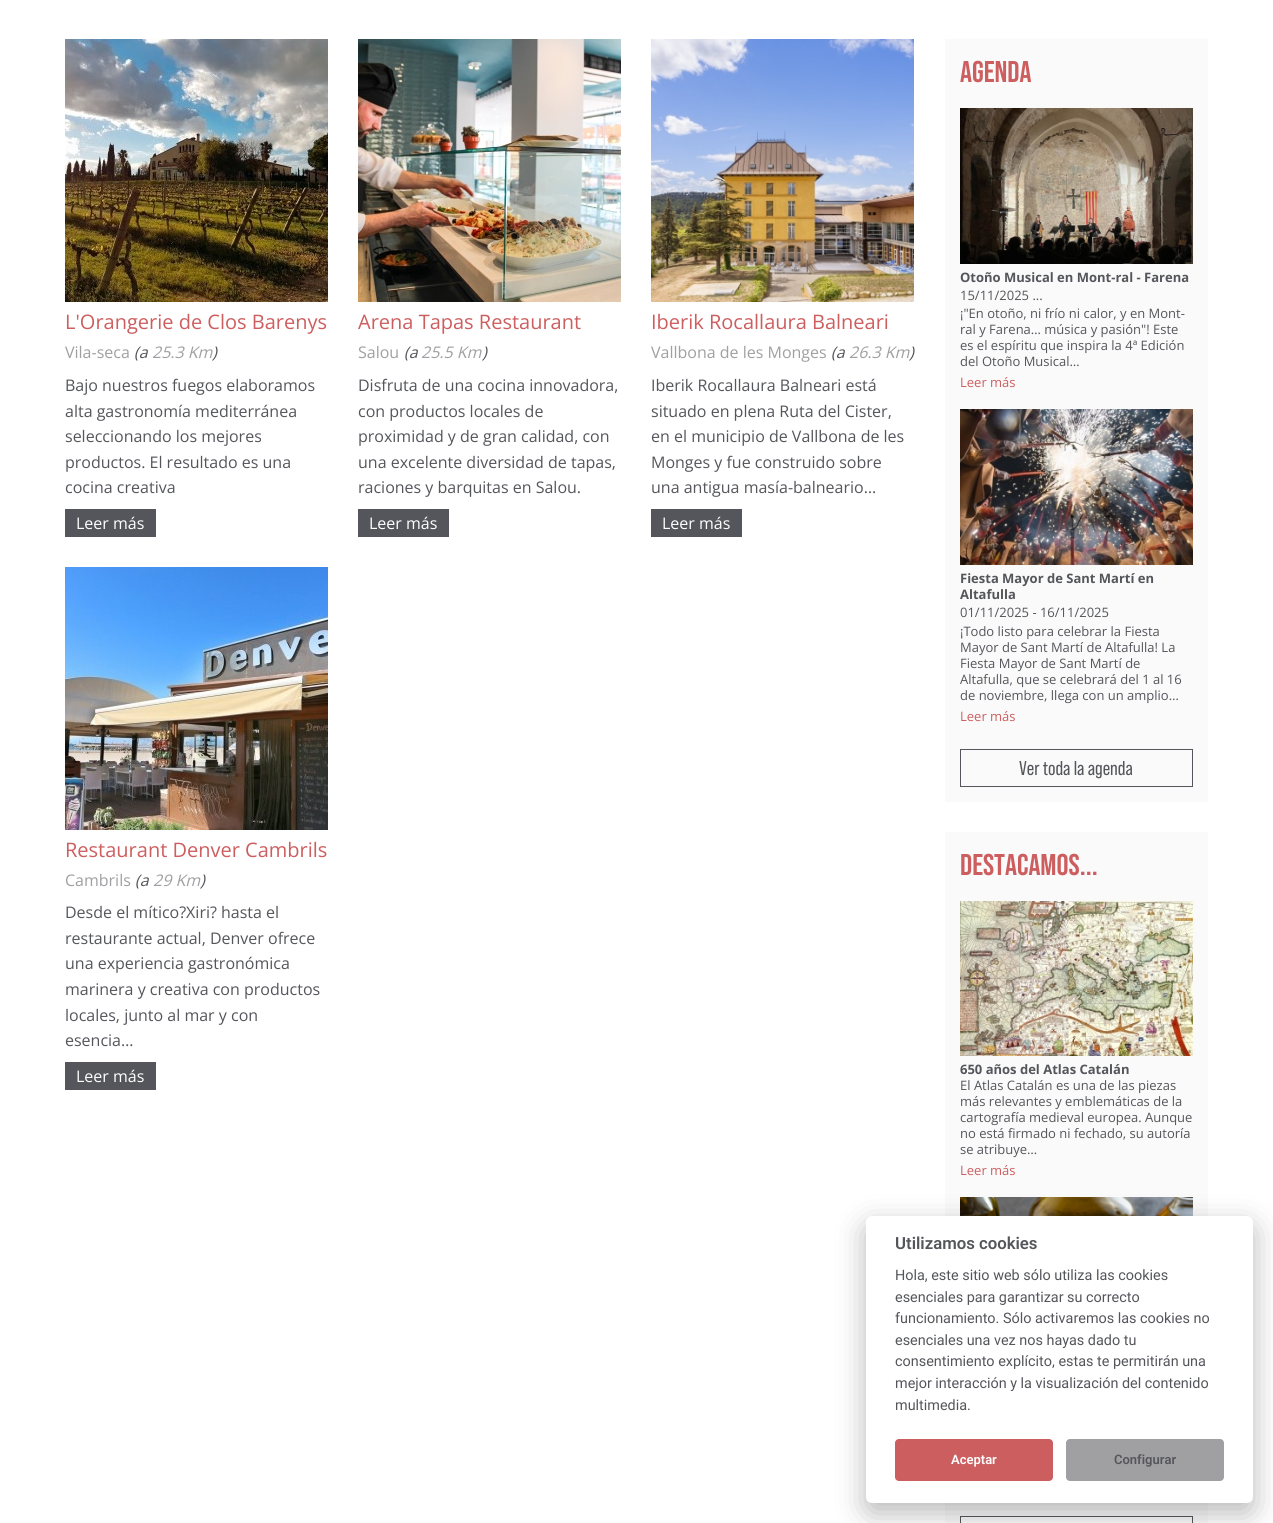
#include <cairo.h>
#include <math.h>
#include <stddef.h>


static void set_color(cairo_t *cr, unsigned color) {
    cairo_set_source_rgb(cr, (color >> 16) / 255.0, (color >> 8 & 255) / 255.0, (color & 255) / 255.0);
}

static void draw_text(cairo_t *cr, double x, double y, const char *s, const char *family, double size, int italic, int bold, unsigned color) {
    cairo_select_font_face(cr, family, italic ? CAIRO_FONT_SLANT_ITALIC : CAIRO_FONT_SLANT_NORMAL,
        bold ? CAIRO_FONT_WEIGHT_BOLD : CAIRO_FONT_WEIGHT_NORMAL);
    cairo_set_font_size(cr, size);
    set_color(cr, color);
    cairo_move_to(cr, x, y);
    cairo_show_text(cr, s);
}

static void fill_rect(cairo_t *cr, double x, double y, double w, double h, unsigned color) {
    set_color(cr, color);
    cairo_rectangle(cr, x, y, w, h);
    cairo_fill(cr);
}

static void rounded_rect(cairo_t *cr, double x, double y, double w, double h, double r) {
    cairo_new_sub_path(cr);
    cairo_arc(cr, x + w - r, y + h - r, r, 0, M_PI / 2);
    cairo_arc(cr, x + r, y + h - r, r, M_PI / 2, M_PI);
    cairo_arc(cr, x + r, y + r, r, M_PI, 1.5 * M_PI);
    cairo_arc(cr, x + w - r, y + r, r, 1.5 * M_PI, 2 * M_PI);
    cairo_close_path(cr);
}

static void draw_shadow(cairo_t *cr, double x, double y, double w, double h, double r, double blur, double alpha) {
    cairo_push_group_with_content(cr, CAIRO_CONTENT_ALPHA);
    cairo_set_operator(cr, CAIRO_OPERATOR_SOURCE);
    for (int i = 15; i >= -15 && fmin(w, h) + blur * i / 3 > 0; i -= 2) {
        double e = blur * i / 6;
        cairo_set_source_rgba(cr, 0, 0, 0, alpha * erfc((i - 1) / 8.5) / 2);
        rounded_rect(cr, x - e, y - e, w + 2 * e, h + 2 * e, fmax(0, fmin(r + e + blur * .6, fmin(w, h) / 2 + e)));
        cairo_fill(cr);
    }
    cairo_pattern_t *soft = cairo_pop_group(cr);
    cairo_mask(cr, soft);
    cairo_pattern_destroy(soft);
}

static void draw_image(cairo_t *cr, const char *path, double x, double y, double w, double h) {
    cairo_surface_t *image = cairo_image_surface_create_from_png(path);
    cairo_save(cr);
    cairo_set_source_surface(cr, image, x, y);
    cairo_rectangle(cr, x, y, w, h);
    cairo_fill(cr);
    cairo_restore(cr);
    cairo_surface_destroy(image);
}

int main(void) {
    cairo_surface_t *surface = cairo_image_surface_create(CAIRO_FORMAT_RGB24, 1273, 1523);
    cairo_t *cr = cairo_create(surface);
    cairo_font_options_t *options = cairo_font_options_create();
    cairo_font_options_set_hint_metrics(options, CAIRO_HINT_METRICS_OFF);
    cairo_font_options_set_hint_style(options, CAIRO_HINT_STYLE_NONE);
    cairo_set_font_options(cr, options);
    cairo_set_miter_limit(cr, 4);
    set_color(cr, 0xFFFFFF);
    cairo_paint(cr);
    draw_image(cr, "assets/img1.png", 65, 39, 263, 263);
    draw_text(cr, 65, 329, "L'Orangerie de Clos Barenys", "Open Sans", 20, 0, 0, 0xCD5E5F);
    draw_text(cr, 65, 358, "Vila-seca", "Open Sans", 16, 0, 0, 0xA09FA2);
    draw_text(cr, 134, 358, "(a", "Open Sans", 16, 1, 0, 0x55565B);
    draw_text(cr, 152, 358, "25.3 Km", "Open Sans", 16, 1, 0, 0xA09FA2);
    draw_text(cr, 212, 358, ")", "Open Sans", 16, 1, 0, 0x55565B);
    draw_text(cr, 65, 391, "Bajo nuestros fuegos elaboramos", "Open Sans", 16, 0, 0, 0x55565B);
    draw_text(cr, 65, 417, "alta gastronomía mediterránea", "Open Sans", 16, 0, 0, 0x55565B);
    draw_text(cr, 65, 442, "seleccionando los mejores", "Open Sans", 16, 0, 0, 0x55565B);
    draw_text(cr, 65, 468, "productos. El resultado es una", "Open Sans", 16, 0, 0, 0x55565B);
    draw_text(cr, 65, 493, "cocina creativa", "Open Sans", 16, 0, 0, 0x55565B);
    fill_rect(cr, 65, 509, 91, 28, 0x55565B);
    draw_text(cr, 76, 529, "Leer más", "Open Sans", 16, 0, 0, 0xFFFFFF);
    draw_image(cr, "assets/img2.png", 358, 39, 263, 263);
    draw_text(cr, 358, 329, "Arena Tapas Restaurant", "Open Sans", 20, 0, 0, 0xCD5E5F);
    draw_text(cr, 358, 358, "Salou", "Open Sans", 16, 0, 0, 0xA09FA2);
    draw_text(cr, 404, 358, "(a", "Open Sans", 16, 1, 0, 0x55565B);
    draw_text(cr, 421, 358, "25.5 Km", "Open Sans", 16, 1, 0, 0xA09FA2);
    draw_text(cr, 482, 358, ")", "Open Sans", 16, 1, 0, 0x55565B);
    draw_text(cr, 358, 391, "Disfruta de una cocina innovadora,", "Open Sans", 16, 0, 0, 0x55565B);
    draw_text(cr, 358, 417, "con productos locales de", "Open Sans", 16, 0, 0, 0x55565B);
    draw_text(cr, 358, 442, "proximidad y de gran calidad, con", "Open Sans", 16, 0, 0, 0x55565B);
    draw_text(cr, 358, 468, "una excelente diversidad de tapas,", "Open Sans", 16, 0, 0, 0x55565B);
    draw_text(cr, 358, 493, "raciones y barquitas en Salou.", "Open Sans", 16, 0, 0, 0x55565B);
    fill_rect(cr, 358, 509, 91, 28, 0x55565B);
    draw_text(cr, 369, 529, "Leer más", "Open Sans", 16, 0, 0, 0xFFFFFF);
    draw_image(cr, "assets/img3.png", 651, 39, 263, 263);
    draw_text(cr, 651, 329, "Iberik Rocallaura Balneari", "Open Sans", 20, 0, 0, 0xCD5E5F);
    draw_text(cr, 651, 358, "Vallbona de les Monges", "Open Sans", 16, 0, 0, 0xA09FA2);
    draw_text(cr, 831, 358, "(a", "Open Sans", 16, 1, 0, 0x55565B);
    draw_text(cr, 849, 358, "26.3 Km", "Open Sans", 16, 1, 0, 0xA09FA2);
    draw_text(cr, 909, 358, ")", "Open Sans", 16, 1, 0, 0x55565B);
    draw_text(cr, 651, 391, "Iberik Rocallaura Balneari está", "Open Sans", 16, 0, 0, 0x55565B);
    draw_text(cr, 651, 417, "situado en plena Ruta del Cister,", "Open Sans", 16, 0, 0, 0x55565B);
    draw_text(cr, 651, 442, "en el municipio de Vallbona de les", "Open Sans", 16, 0, 0, 0x55565B);
    draw_text(cr, 651, 468, "Monges y fue construido sobre", "Open Sans", 16, 0, 0, 0x55565B);
    draw_text(cr, 651, 493, "una antigua masía-balneario…", "Open Sans", 16, 0, 0, 0x55565B);
    fill_rect(cr, 651, 509, 91, 28, 0x55565B);
    draw_text(cr, 662, 529, "Leer más", "Open Sans", 16, 0, 0, 0xFFFFFF);
    draw_image(cr, "assets/img4.png", 65, 567, 263, 263);
    draw_text(cr, 65, 857, "Restaurant Denver Cambrils", "Open Sans", 20, 0, 0, 0xCD5E5F);
    draw_text(cr, 65, 886, "Cambrils", "Open Sans", 16, 0, 0, 0xA09FA2);
    draw_text(cr, 135, 886, "(a", "Open Sans", 16, 1, 0, 0x55565B);
    draw_text(cr, 153, 886, "29 Km", "Open Sans", 16, 1, 0, 0xA09FA2);
    draw_text(cr, 200, 886, ")", "Open Sans", 16, 1, 0, 0x55565B);
    draw_text(cr, 65, 918, "Desde el mítico?Xiri? hasta el", "Open Sans", 16, 0, 0, 0x55565B);
    draw_text(cr, 65, 944, "restaurante actual, Denver ofrece", "Open Sans", 16, 0, 0, 0x55565B);
    draw_text(cr, 65, 969, "una experiencia gastronómica", "Open Sans", 16, 0, 0, 0x55565B);
    draw_text(cr, 65, 995, "marinera y creativa con productos", "Open Sans", 16, 0, 0, 0x55565B);
    draw_text(cr, 65, 1021, "locales, junto al mar y con", "Open Sans", 16, 0, 0, 0x55565B);
    draw_text(cr, 65, 1046, "esencia…", "Open Sans", 16, 0, 0, 0x55565B);
    fill_rect(cr, 65, 1062, 91, 28, 0x55565B);
    draw_text(cr, 76, 1082, "Leer más", "Open Sans", 16, 0, 0, 0xFFFFFF);
    fill_rect(cr, 945, 39, 263, 763, 0xFAFAFA);
    draw_text(cr, 960, 82, "AGENDA", "Bebas Neue", 30, 0, 1, 0xCD5E5F);
    draw_image(cr, "assets/img5.png", 960, 108, 233, 156);
    draw_text(cr, 960, 282, "Otoño Musical en Mont-ral - Farena", "Open Sans", 13, 0, 1, 0x55565B);
    draw_text(cr, 960, 300, "15/11/2025 ...", "Open Sans", 13, 0, 0, 0x55565B);
    draw_text(cr, 960, 318, "¡\"En otoño, ni frío ni calor, y en Mont-", "Open Sans", 13, 0, 0, 0x55565B);
    draw_text(cr, 960, 334, "ral y Farena… música y pasión\"! Este", "Open Sans", 13, 0, 0, 0x55565B);
    draw_text(cr, 960, 350, "es el espíritu que inspira la 4ª Edición", "Open Sans", 13, 0, 0, 0x55565B);
    draw_text(cr, 960, 366, "del Otoño Musical…", "Open Sans", 13, 0, 0, 0x55565B);
    draw_text(cr, 960, 387, "Leer más", "Open Sans", 13, 0, 0, 0xCD5E5F);
    draw_image(cr, "assets/img6.png", 960, 409, 233, 156);
    draw_text(cr, 960, 583, "Fiesta Mayor de Sant Martí en", "Open Sans", 13, 0, 1, 0x55565B);
    draw_text(cr, 960, 599, "Altafulla", "Open Sans", 13, 0, 1, 0x55565B);
    draw_text(cr, 960, 617, "01/11/2025 - 16/11/2025", "Open Sans", 13, 0, 0, 0x55565B);
    draw_text(cr, 960, 636, "¡Todo listo para celebrar la Fiesta", "Open Sans", 13, 0, 0, 0x55565B);
    draw_text(cr, 960, 652, "Mayor de Sant Martí de Altafulla! La", "Open Sans", 13, 0, 0, 0x55565B);
    draw_text(cr, 960, 668, "Fiesta Mayor de Sant Martí de", "Open Sans", 13, 0, 0, 0x55565B);
    draw_text(cr, 960, 684, "Altafulla, que se celebrará del 1 al 16", "Open Sans", 13, 0, 0, 0x55565B);
    draw_text(cr, 960, 700, "de noviembre, llega con un amplio…", "Open Sans", 13, 0, 0, 0x55565B);
    draw_text(cr, 960, 721, "Leer más", "Open Sans", 13, 0, 0, 0xCD5E5F);
    cairo_rectangle(cr, 960.5, 749.5, 232, 37);
    set_color(cr, 0x55565B);
    cairo_set_line_width(cr, 1);
    cairo_stroke(cr);
    draw_text(cr, 1019, 775, "Ver toda la agenda", "Bebas Neue", 20, 0, 0, 0x55565B);
    fill_rect(cr, 945, 832, 263, 691, 0xFAFAFA);
    draw_text(cr, 960, 875, "DESTACAMOS...", "Bebas Neue", 30, 0, 1, 0xCD5E5F);
    draw_image(cr, "assets/img7.png", 960, 901, 233, 155);
    draw_text(cr, 960, 1074, "650 años del Atlas Catalán", "Open Sans", 13, 0, 1, 0x55565B);
    draw_text(cr, 960, 1090, "El Atlas Catalán es una de las piezas", "Open Sans", 13, 0, 0, 0x55565B);
    draw_text(cr, 960, 1106, "más relevantes y emblemáticas de la", "Open Sans", 13, 0, 0, 0x55565B);
    draw_text(cr, 960, 1122, "cartografía medieval europea. Aunque", "Open Sans", 13, 0, 0, 0x55565B);
    draw_text(cr, 960, 1138, "no está firmado ni fechado, su autoría", "Open Sans", 13, 0, 0, 0x55565B);
    draw_text(cr, 960, 1154, "se atribuye…", "Open Sans", 13, 0, 0, 0x55565B);
    draw_text(cr, 960, 1175, "Leer más", "Open Sans", 13, 0, 0, 0xCD5E5F);
    draw_image(cr, "assets/img8.png", 960, 1197, 233, 19);
    cairo_rectangle(cr, 960.5, 1516.5, 232, 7);
    set_color(cr, 0x55565B);
    cairo_stroke(cr);
    set_color(cr, 0x020203);
    draw_shadow(cr, 866, 1226, 387, 287, 6, 15, 0.28);
    set_color(cr, 0xFFFFFF);
    rounded_rect(cr, 866, 1216, 387, 287, 6);
    cairo_fill(cr);
    draw_text(cr, 895, 1249, "Utilizamos cookies", "Roboto SemiBold", 16.75, 0, 0, 0x55565B);
    draw_text(cr, 895, 1280, "Hola, este sitio web sólo utiliza las cookies", "Roboto", 14.4, 0, 0, 0x55565B);
    draw_text(cr, 895, 1302, "esenciales para garantizar su correcto", "Roboto", 14.4, 0, 0, 0x55565B);
    draw_text(cr, 895, 1323, "funcionamiento. Sólo activaremos las cookies no", "Roboto", 14.4, 0, 0, 0x55565B);
    draw_text(cr, 895, 1345, "esenciales una vez nos hayas dado tu", "Roboto", 14.4, 0, 0, 0x55565B);
    draw_text(cr, 895, 1366, "consentimiento explícito, estas te permitirán una", "Roboto", 14.4, 0, 0, 0x55565B);
    draw_text(cr, 895, 1388, "mejor interacción y la visualización del contenido", "Roboto", 14.4, 0, 0, 0x55565B);
    draw_text(cr, 895, 1410, "multimedia.", "Roboto", 14.4, 0, 0, 0x55565B);
    set_color(cr, 0xCD5E5F);
    rounded_rect(cr, 895, 1439, 158, 42, 4);
    cairo_fill(cr);
    draw_text(cr, 951, 1464, "Aceptar", "Roboto SemiBold", 13, 0, 0, 0xFFFFFF);
    set_color(cr, 0xA09FA2);
    rounded_rect(cr, 1066, 1439, 158, 42, 4);
    cairo_fill(cr);
    draw_text(cr, 1114, 1464, "Configurar", "Roboto SemiBold", 13, 0, 0, 0x55565B);
    cairo_surface_write_to_png(surface, "output.png");
    cairo_font_options_destroy(options);
    cairo_destroy(cr);
    cairo_surface_destroy(surface);
    return 0;
}
